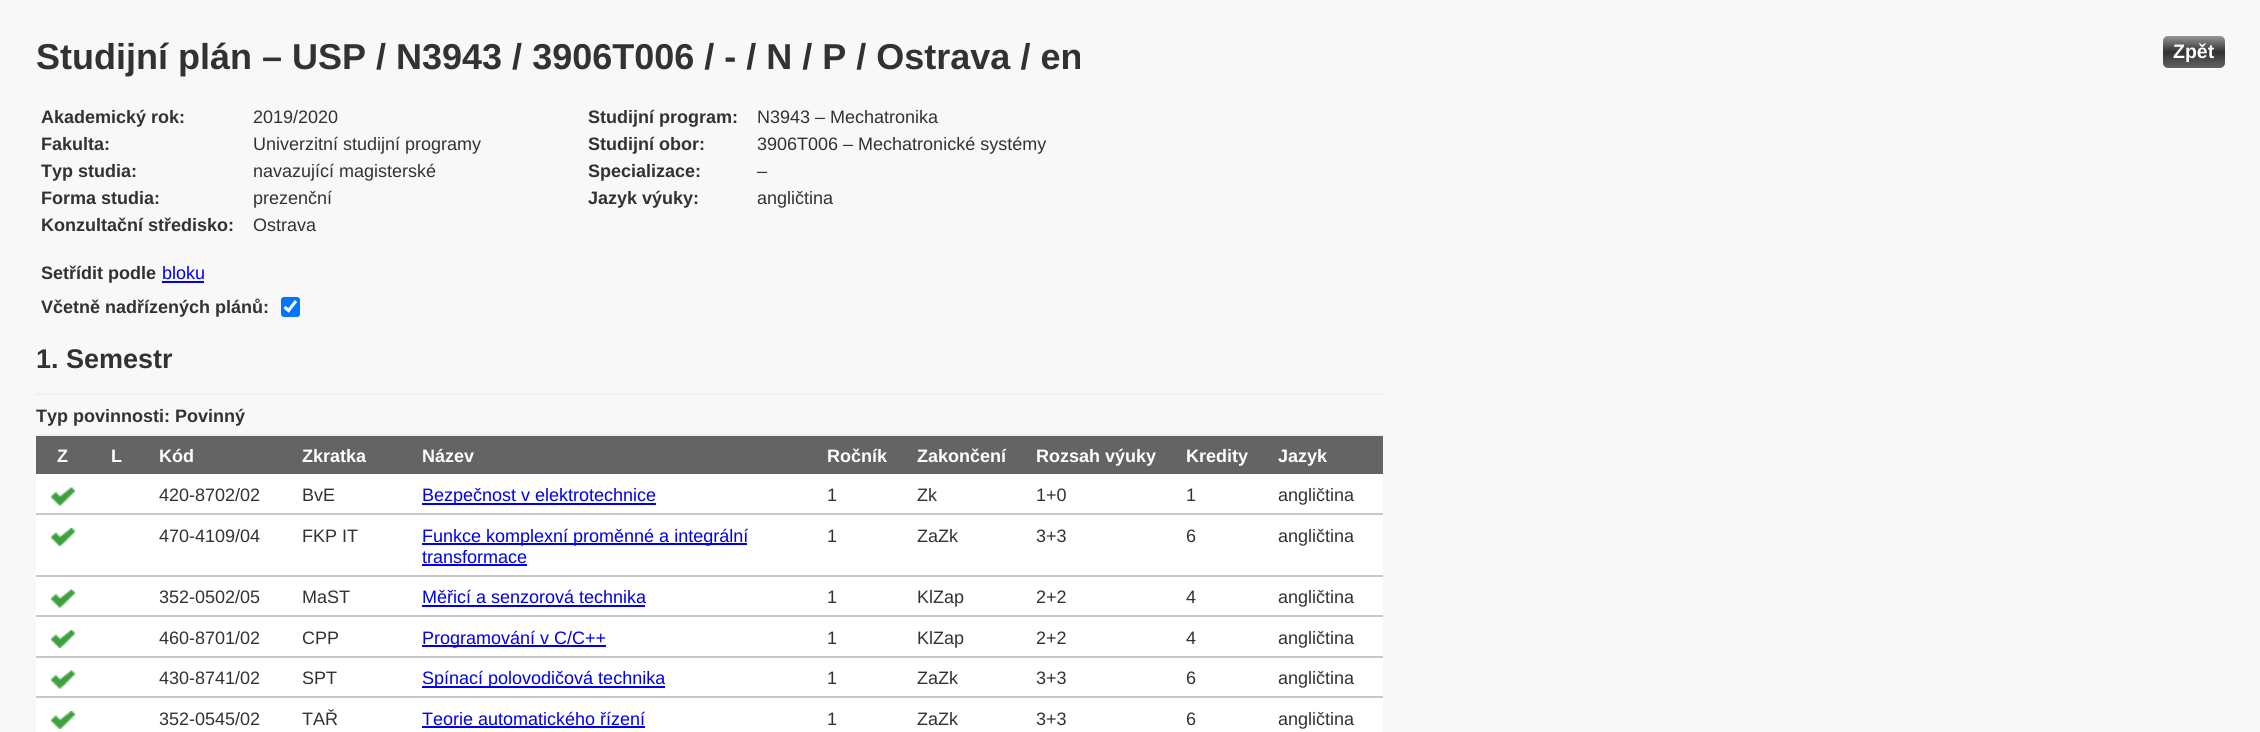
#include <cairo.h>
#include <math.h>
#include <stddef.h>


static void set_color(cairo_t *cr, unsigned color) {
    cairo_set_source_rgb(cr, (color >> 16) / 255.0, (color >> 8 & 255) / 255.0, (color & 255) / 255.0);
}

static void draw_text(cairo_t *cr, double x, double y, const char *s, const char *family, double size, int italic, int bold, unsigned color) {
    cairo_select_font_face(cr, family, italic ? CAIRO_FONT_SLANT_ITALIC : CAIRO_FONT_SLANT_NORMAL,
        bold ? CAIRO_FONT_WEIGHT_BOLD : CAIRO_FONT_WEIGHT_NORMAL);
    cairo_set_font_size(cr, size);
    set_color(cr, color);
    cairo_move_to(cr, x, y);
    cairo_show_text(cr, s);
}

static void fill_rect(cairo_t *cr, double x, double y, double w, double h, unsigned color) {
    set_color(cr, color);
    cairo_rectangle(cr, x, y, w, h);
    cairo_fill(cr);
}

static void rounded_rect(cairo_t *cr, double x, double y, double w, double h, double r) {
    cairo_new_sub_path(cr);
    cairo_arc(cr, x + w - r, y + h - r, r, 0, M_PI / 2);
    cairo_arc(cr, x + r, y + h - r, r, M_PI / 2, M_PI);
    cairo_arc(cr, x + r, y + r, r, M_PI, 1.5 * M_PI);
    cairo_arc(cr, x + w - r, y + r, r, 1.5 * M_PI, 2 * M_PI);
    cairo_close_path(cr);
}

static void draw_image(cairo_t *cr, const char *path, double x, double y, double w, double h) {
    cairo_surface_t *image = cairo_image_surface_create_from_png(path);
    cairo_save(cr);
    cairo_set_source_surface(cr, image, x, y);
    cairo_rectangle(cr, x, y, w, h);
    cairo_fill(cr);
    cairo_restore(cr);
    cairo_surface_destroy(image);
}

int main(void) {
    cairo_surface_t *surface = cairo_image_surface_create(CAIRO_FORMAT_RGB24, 2260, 732);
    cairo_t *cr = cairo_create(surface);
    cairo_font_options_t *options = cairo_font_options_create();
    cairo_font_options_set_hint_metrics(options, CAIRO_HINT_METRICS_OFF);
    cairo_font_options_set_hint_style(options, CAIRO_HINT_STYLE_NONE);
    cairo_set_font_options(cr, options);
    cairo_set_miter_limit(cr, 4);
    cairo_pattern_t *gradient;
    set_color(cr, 0xF8F8F8);
    cairo_paint(cr);
    draw_text(cr, 36, 69, "Studijní plán – USP / N3943 / 3906T006 / - / N / P / Ostrava / en", "Liberation Sans", 36, 0, 1, 0x323232);
    draw_text(cr, 41, 123, "Akademický rok:", "Liberation Sans", 18, 0, 1, 0x323232);
    draw_text(cr, 253, 123, "2019/2020", "Liberation Sans", 18, 0, 0, 0x323232);
    draw_text(cr, 588, 123, "Studijní program:", "Liberation Sans", 18, 0, 1, 0x323232);
    draw_text(cr, 757, 123, "N3943 – Mechatronika", "Liberation Sans", 18, 0, 0, 0x323232);
    draw_text(cr, 41, 150, "Fakulta:", "Liberation Sans", 18, 0, 1, 0x323232);
    draw_text(cr, 253, 150, "Univerzitní studijní programy", "Liberation Sans", 18, 0, 0, 0x323232);
    draw_text(cr, 588, 150, "Studijní obor:", "Liberation Sans", 18, 0, 1, 0x323232);
    draw_text(cr, 757, 150, "3906T006 – Mechatronické systémy", "Liberation Sans", 18, 0, 0, 0x323232);
    draw_text(cr, 41, 177, "Typ studia:", "Liberation Sans", 18, 0, 1, 0x323232);
    draw_text(cr, 253, 177, "navazující magisterské", "Liberation Sans", 18, 0, 0, 0x323232);
    draw_text(cr, 588, 177, "Specializace:", "Liberation Sans", 18, 0, 1, 0x323232);
    draw_text(cr, 757, 177, "–", "Liberation Sans", 18, 0, 0, 0x323232);
    draw_text(cr, 41, 204, "Forma studia:", "Liberation Sans", 18, 0, 1, 0x323232);
    draw_text(cr, 253, 204, "prezenční", "Liberation Sans", 18, 0, 0, 0x323232);
    draw_text(cr, 588, 204, "Jazyk výuky:", "Liberation Sans", 18, 0, 1, 0x323232);
    draw_text(cr, 757, 204, "angličtina", "Liberation Sans", 18, 0, 0, 0x323232);
    draw_text(cr, 41, 231, "Konzultační středisko:", "Liberation Sans", 18, 0, 1, 0x323232);
    draw_text(cr, 253, 231, "Ostrava", "Liberation Sans", 18, 0, 0, 0x323232);
    draw_text(cr, 41, 279, "Setřídit podle", "Liberation Sans", 18, 0, 1, 0x323232);
    draw_text(cr, 162, 279, "bloku", "Liberation Sans", 18, 0, 0, 0x0000EE);
    fill_rect(cr, 162, 281, 42, 2, 0x0000EE);
    draw_text(cr, 41, 313, "Včetně nadřízených plánů:", "Liberation Sans", 18, 0, 1, 0x323232);
    set_color(cr, 0x0075FF);
    rounded_rect(cr, 281, 297, 19, 20, 3);
    cairo_fill(cr);
    cairo_new_path(cr);
    cairo_move_to(cr, 284.5, 307);
    cairo_line_to(cr, 288.5, 310.5);
    cairo_line_to(cr, 296, 301);
    set_color(cr, 0xFFFFFF);
    cairo_set_line_width(cr, 3.1);
    cairo_stroke(cr);
    draw_text(cr, 36, 368, "1. Semestr", "Liberation Sans", 27, 0, 1, 0x323232);
    fill_rect(cr, 36, 393, 1347, 2, 0xF0F0F0);
    draw_text(cr, 36, 422, "Typ povinnosti: Povinný", "Liberation Sans", 18, 0, 1, 0x323232);
    fill_rect(cr, 36, 434, 1347, 2, 0xF0F0F0);
    fill_rect(cr, 36, 436, 1347, 38, 0x646464);
    draw_text(cr, 57, 462, "Z", "Liberation Sans", 18, 0, 1, 0xFFFFFF);
    draw_text(cr, 111, 462, "L", "Liberation Sans", 18, 0, 1, 0xFFFFFF);
    draw_text(cr, 159, 462, "Kód", "Liberation Sans", 18, 0, 1, 0xFFFFFF);
    draw_text(cr, 302, 462, "Zkratka", "Liberation Sans", 18, 0, 1, 0xFFFFFF);
    draw_text(cr, 422, 462, "Název", "Liberation Sans", 18, 0, 1, 0xFFFFFF);
    draw_text(cr, 827, 462, "Ročník", "Liberation Sans", 18, 0, 1, 0xFFFFFF);
    draw_text(cr, 917, 462, "Zakončení", "Liberation Sans", 18, 0, 1, 0xFFFFFF);
    draw_text(cr, 1036, 462, "Rozsah výuky", "Liberation Sans", 18, 0, 1, 0xFFFFFF);
    draw_text(cr, 1186, 462, "Kredity", "Liberation Sans", 18, 0, 1, 0xFFFFFF);
    draw_text(cr, 1278, 462, "Jazyk", "Liberation Sans", 18, 0, 1, 0xFFFFFF);
    fill_rect(cr, 36, 474, 1347, 39, 0xFFFFFF);
    draw_image(cr, "assets/img1.png", 51, 487, 24, 19);
    draw_text(cr, 159, 501, "420-8702/02", "Liberation Sans", 18, 0, 0, 0x323232);
    draw_text(cr, 302, 501, "BvE", "Liberation Sans", 18, 0, 0, 0x323232);
    fill_rect(cr, 422, 503, 234, 2, 0x0000EE);
    draw_text(cr, 422, 501, "Bezpečnost v elektrotechnice", "Liberation Sans", 18, 0, 0, 0x0000EE);
    draw_text(cr, 827, 501, "1", "Liberation Sans", 18, 0, 0, 0x323232);
    draw_text(cr, 917, 501, "Zk", "Liberation Sans", 18, 0, 0, 0x323232);
    draw_text(cr, 1036, 501, "1+0", "Liberation Sans", 18, 0, 0, 0x323232);
    draw_text(cr, 1186, 501, "1", "Liberation Sans", 18, 0, 0, 0x323232);
    fill_rect(cr, 36, 513, 1347, 2, 0xC8C8C8);
    draw_text(cr, 1278, 501, "angličtina", "Liberation Sans", 18, 0, 0, 0x323232);
    fill_rect(cr, 36, 515, 1347, 60, 0xFFFFFF);
    draw_image(cr, "assets/img2.png", 51, 528, 24, 18);
    draw_text(cr, 159, 542, "470-4109/04", "Liberation Sans", 18, 0, 0, 0x323232);
    draw_text(cr, 302, 542, "FKP IT", "Liberation Sans", 18, 0, 0, 0x323232);
    fill_rect(cr, 422, 543, 325, 2, 0x0000EE);
    draw_text(cr, 422, 542, "Funkce komplexní proměnné a integrální", "Liberation Sans", 18, 0, 0, 0x0000EE);
    draw_text(cr, 422, 563, "transformace", "Liberation Sans", 18, 0, 0, 0x0000EE);
    fill_rect(cr, 422, 564, 105, 2, 0x0000EE);
    draw_text(cr, 827, 542, "1", "Liberation Sans", 18, 0, 0, 0x323232);
    draw_text(cr, 917, 542, "ZaZk", "Liberation Sans", 18, 0, 0, 0x323232);
    draw_text(cr, 1036, 542, "3+3", "Liberation Sans", 18, 0, 0, 0x323232);
    draw_text(cr, 1186, 542, "6", "Liberation Sans", 18, 0, 0, 0x323232);
    fill_rect(cr, 36, 575, 1347, 2, 0xC8C8C8);
    draw_text(cr, 1278, 542, "angličtina", "Liberation Sans", 18, 0, 0, 0x323232);
    fill_rect(cr, 36, 577, 1347, 38, 0xFFFFFF);
    draw_image(cr, "assets/img1.png", 51, 589, 24, 19);
    draw_text(cr, 159, 603, "352-0502/05", "Liberation Sans", 18, 0, 0, 0x323232);
    draw_text(cr, 302, 603, "MaST", "Liberation Sans", 18, 0, 0, 0x323232);
    draw_text(cr, 422, 603, "Měřicí a senzorová technika", "Liberation Sans", 18, 0, 0, 0x0000EE);
    fill_rect(cr, 422, 605, 223, 2, 0x0000EE);
    draw_text(cr, 827, 603, "1", "Liberation Sans", 18, 0, 0, 0x323232);
    draw_text(cr, 917, 603, "KlZap", "Liberation Sans", 18, 0, 0, 0x323232);
    draw_text(cr, 1036, 603, "2+2", "Liberation Sans", 18, 0, 0, 0x323232);
    draw_text(cr, 1186, 603, "4", "Liberation Sans", 18, 0, 0, 0x323232);
    fill_rect(cr, 36, 615, 1347, 2, 0xC8C8C8);
    draw_text(cr, 1278, 603, "angličtina", "Liberation Sans", 18, 0, 0, 0x323232);
    fill_rect(cr, 36, 617, 1347, 39, 0xFFFFFF);
    draw_image(cr, "assets/img2.png", 51, 630, 24, 18);
    draw_text(cr, 159, 644, "460-8701/02", "Liberation Sans", 18, 0, 0, 0x323232);
    draw_text(cr, 302, 644, "CPP", "Liberation Sans", 18, 0, 0, 0x323232);
    fill_rect(cr, 422, 645, 184, 2, 0x0000EE);
    draw_text(cr, 422, 644, "Programování v C/C++", "Liberation Sans", 18, 0, 0, 0x0000EE);
    draw_text(cr, 827, 644, "1", "Liberation Sans", 18, 0, 0, 0x323232);
    draw_text(cr, 917, 644, "KlZap", "Liberation Sans", 18, 0, 0, 0x323232);
    draw_text(cr, 1036, 644, "2+2", "Liberation Sans", 18, 0, 0, 0x323232);
    draw_text(cr, 1186, 644, "4", "Liberation Sans", 18, 0, 0, 0x323232);
    fill_rect(cr, 36, 656, 1347, 2, 0xC8C8C8);
    draw_text(cr, 1278, 644, "angličtina", "Liberation Sans", 18, 0, 0, 0x323232);
    fill_rect(cr, 36, 658, 1347, 38, 0xFFFFFF);
    draw_image(cr, "assets/img1.png", 51, 670, 24, 19);
    draw_text(cr, 159, 684, "430-8741/02", "Liberation Sans", 18, 0, 0, 0x323232);
    draw_text(cr, 302, 684, "SPT", "Liberation Sans", 18, 0, 0, 0x323232);
    fill_rect(cr, 422, 686, 243, 2, 0x0000EE);
    draw_text(cr, 422, 684, "Spínací polovodičová technika", "Liberation Sans", 18, 0, 0, 0x0000EE);
    draw_text(cr, 827, 684, "1", "Liberation Sans", 18, 0, 0, 0x323232);
    draw_text(cr, 917, 684, "ZaZk", "Liberation Sans", 18, 0, 0, 0x323232);
    draw_text(cr, 1036, 684, "3+3", "Liberation Sans", 18, 0, 0, 0x323232);
    draw_text(cr, 1186, 684, "6", "Liberation Sans", 18, 0, 0, 0x323232);
    fill_rect(cr, 36, 696, 1347, 2, 0xC8C8C8);
    draw_text(cr, 1278, 684, "angličtina", "Liberation Sans", 18, 0, 0, 0x323232);
    fill_rect(cr, 36, 698, 1347, 34, 0xFFFFFF);
    draw_image(cr, "assets/img2.png", 51, 711, 24, 18);
    draw_text(cr, 159, 725, "352-0545/02", "Liberation Sans", 18, 0, 0, 0x323232);
    draw_text(cr, 302, 725, "TAŘ", "Liberation Sans", 18, 0, 0, 0x323232);
    draw_text(cr, 422, 725, "Teorie automatického řízení", "Liberation Sans", 18, 0, 0, 0x0000EE);
    fill_rect(cr, 422, 726, 223, 2, 0x0000EE);
    draw_text(cr, 827, 725, "1", "Liberation Sans", 18, 0, 0, 0x323232);
    draw_text(cr, 917, 725, "ZaZk", "Liberation Sans", 18, 0, 0, 0x323232);
    draw_text(cr, 1036, 725, "3+3", "Liberation Sans", 18, 0, 0, 0x323232);
    draw_text(cr, 1186, 725, "6", "Liberation Sans", 18, 0, 0, 0x323232);
    draw_text(cr, 1278, 725, "angličtina", "Liberation Sans", 18, 0, 0, 0x323232);
    set_color(cr, 0xFFFFFF);
    cairo_new_path(cr);
    cairo_move_to(cr, 2163, 63);
    cairo_curve_to(cr, 2163, 71, 2171, 69, 2177, 69);
    cairo_line_to(cr, 2211, 69);
    cairo_curve_to(cr, 2225, 69, 2225, 70, 2225, 57);
    cairo_curve_to(cr, 2225, 53, 2226, 44, 2224, 41);
    cairo_line_to(cr, 2224, 63);
    cairo_curve_to(cr, 2224, 65, 2222, 68, 2220, 68);
    cairo_line_to(cr, 2168, 68);
    cairo_curve_to(cr, 2165, 68, 2163, 65, 2163, 63);
    cairo_close_path(cr);
    cairo_fill(cr);
    gradient = cairo_pattern_create_linear(2194, 36, 2194, 68);
    cairo_pattern_add_color_stop_rgba(gradient, 0, 0.588, 0.588, 0.588, 1);
    cairo_pattern_add_color_stop_rgba(gradient, 0.5, 0.196, 0.196, 0.196, 1);
    cairo_pattern_add_color_stop_rgba(gradient, 1, 0.392, 0.392, 0.392, 1);
    cairo_set_source(cr, gradient);
    cairo_pattern_destroy(gradient);
    rounded_rect(cr, 2163, 36, 62, 32, 5);
    cairo_fill(cr);
    draw_text(cr, 2173, 58, "Zpět", "Liberation Sans", 19.5, 0, 1, 0xFFFFFF);
    cairo_surface_write_to_png(surface, "output.png");
    cairo_font_options_destroy(options);
    cairo_destroy(cr);
    cairo_surface_destroy(surface);
    return 0;
}
